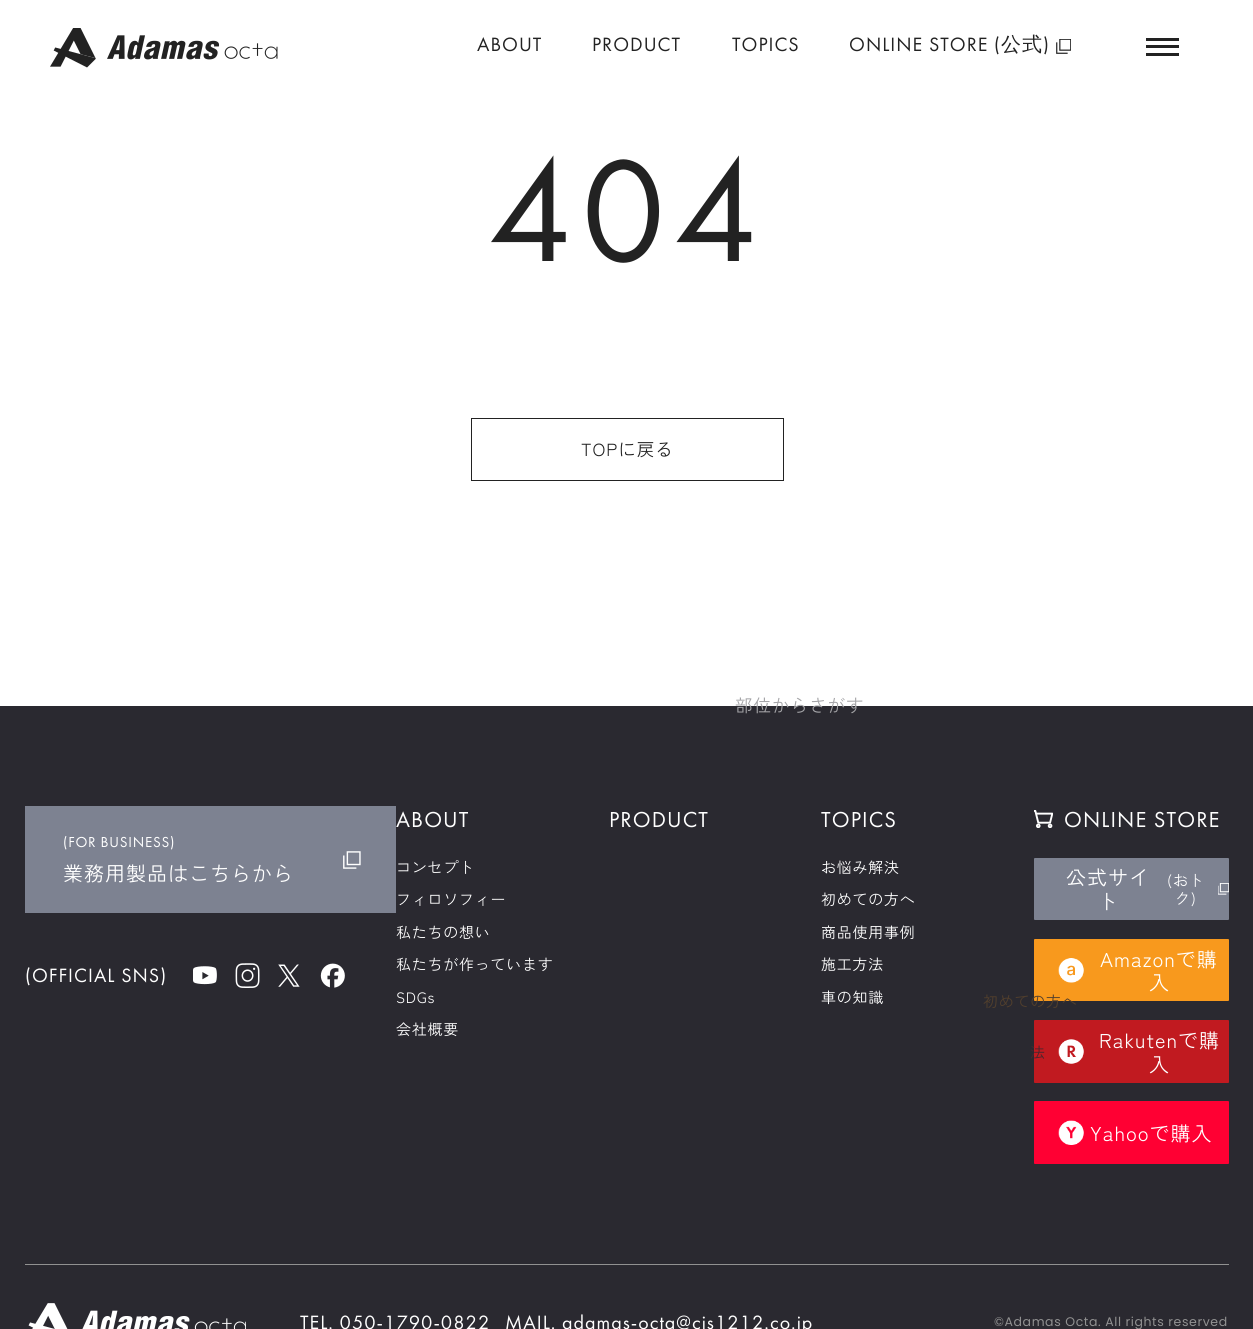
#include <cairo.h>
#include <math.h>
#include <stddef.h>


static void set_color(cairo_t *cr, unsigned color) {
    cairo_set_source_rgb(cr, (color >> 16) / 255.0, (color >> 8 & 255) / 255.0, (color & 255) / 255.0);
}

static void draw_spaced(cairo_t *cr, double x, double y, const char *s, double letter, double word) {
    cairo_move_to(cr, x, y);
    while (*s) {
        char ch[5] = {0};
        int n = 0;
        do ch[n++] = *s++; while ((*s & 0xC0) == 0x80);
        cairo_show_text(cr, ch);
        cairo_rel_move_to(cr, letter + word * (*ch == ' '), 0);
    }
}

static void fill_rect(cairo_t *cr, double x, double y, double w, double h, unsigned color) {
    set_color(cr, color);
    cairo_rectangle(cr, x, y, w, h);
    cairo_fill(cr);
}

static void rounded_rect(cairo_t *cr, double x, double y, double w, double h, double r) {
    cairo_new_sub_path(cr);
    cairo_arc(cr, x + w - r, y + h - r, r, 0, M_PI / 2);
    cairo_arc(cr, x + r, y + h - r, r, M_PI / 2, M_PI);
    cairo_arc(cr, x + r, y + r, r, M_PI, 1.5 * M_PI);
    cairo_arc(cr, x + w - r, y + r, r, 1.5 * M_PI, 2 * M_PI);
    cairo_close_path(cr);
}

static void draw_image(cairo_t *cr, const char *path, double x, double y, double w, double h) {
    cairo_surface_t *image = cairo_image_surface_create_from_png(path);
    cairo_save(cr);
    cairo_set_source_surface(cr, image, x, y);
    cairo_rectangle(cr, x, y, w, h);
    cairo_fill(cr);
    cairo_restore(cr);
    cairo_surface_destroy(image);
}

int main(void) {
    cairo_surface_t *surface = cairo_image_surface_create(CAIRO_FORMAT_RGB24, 1253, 1329);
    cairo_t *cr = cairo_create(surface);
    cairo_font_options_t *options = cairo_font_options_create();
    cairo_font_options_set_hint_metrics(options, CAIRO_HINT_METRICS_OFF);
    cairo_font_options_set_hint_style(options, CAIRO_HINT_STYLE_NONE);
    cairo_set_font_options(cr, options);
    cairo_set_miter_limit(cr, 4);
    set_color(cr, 0xFFFFFF);
    cairo_paint(cr);
    draw_image(cr, "assets/img1.png", 50, 28, 228, 40);
    cairo_select_font_face(cr, "Futura PT", CAIRO_FONT_SLANT_NORMAL, CAIRO_FONT_WEIGHT_NORMAL);
    cairo_set_font_size(cr, 20);
    set_color(cr, 0x222222);
    draw_spaced(cr, 477, 51, "ABOUT", 1, 0);
    draw_spaced(cr, 592, 51, "PRODUCT", 1, 0);
    draw_spaced(cr, 732, 51, "TOPICS", 1, 0);
    draw_spaced(cr, 849, 51, "ONLINE STORE (", 1, 0);
    cairo_select_font_face(cr, "WenQuanYi Zen Hei Medium", CAIRO_FONT_SLANT_NORMAL, CAIRO_FONT_WEIGHT_NORMAL);
    draw_spaced(cr, 1001, 51, "公式", 1, 0);
    cairo_select_font_face(cr, "Futura PT", CAIRO_FONT_SLANT_NORMAL, CAIRO_FONT_WEIGHT_NORMAL);
    draw_spaced(cr, 1043, 51, ")", 1, 0);
    draw_image(cr, "assets/img2.png", 1056, 39, 15, 15);
    fill_rect(cr, 1146, 38, 33, 3, 0x222222);
    fill_rect(cr, 1146, 45, 33, 3, 0x222222);
    fill_rect(cr, 1146, 53, 33, 3, 0x222222);
    fill_rect(cr, 0, 706, 1253, 623, 0x2A2930);
    cairo_select_font_face(cr, "Zen Kaku Gothic Antique", CAIRO_FONT_SLANT_NORMAL, CAIRO_FONT_WEIGHT_NORMAL);
    cairo_set_font_size(cr, 17.5);
    set_color(cr, 0xA4A4A7);
    draw_spaced(cr, 735, 712, "部位からさがす", 1, 0);
    set_color(cr, 0xF8991D);
    rounded_rect(cr, 1034, 939, 195, 62, 1);
    cairo_fill(cr);
    cairo_set_font_size(cr, 15);
    set_color(cr, 0x523F2C);
    draw_spaced(cr, 983, 1007, "初めての方へ", 0.75, 0);
    set_color(cr, 0xC11A20);
    rounded_rect(cr, 1034, 1020, 195, 63, 1);
    cairo_fill(cr);
    set_color(cr, 0x49262D);
    draw_spaced(cr, 1030, 1058, "法", 0.75, 0);
    cairo_select_font_face(cr, "Futura PT", CAIRO_FONT_SLANT_NORMAL, CAIRO_FONT_WEIGHT_NORMAL);
    cairo_set_font_size(cr, 150);
    set_color(cr, 0x222222);
    draw_spaced(cr, 488, 261, "404", 7.5, 0);
    cairo_rectangle(cr, 471.5, 418.5, 312, 62);
    cairo_set_line_width(cr, 1);
    cairo_stroke(cr);
    cairo_select_font_face(cr, "Zen Kaku Gothic Antique", CAIRO_FONT_SLANT_NORMAL, CAIRO_FONT_WEIGHT_NORMAL);
    cairo_set_font_size(cr, 17.5);
    draw_spaced(cr, 581, 456, "TOPに戻る", 1, 0);
    fill_rect(cr, 25, 806, 371, 107, 0x7D8291);
    cairo_select_font_face(cr, "Futura PT", CAIRO_FONT_SLANT_NORMAL, CAIRO_FONT_WEIGHT_NORMAL);
    cairo_set_font_size(cr, 15);
    set_color(cr, 0xFFFFFF);
    draw_spaced(cr, 63, 847, "(FOR BUSINESS)", 0.75, 0);
    draw_image(cr, "assets/img3.png", 343, 851, 18, 18);
    cairo_select_font_face(cr, "Zen Kaku Gothic Antique", CAIRO_FONT_SLANT_NORMAL, CAIRO_FONT_WEIGHT_NORMAL);
    cairo_set_font_size(cr, 20);
    draw_spaced(cr, 63, 881, "業務用製品はこちらから", 1, 0);
    cairo_select_font_face(cr, "Futura PT", CAIRO_FONT_SLANT_NORMAL, CAIRO_FONT_WEIGHT_NORMAL);
    draw_spaced(cr, 25, 982, "(OFFICIAL SNS)", 1, 0);
    draw_image(cr, "assets/img4.png", 193, 966, 24, 19);
    draw_image(cr, "assets/img5.png", 235, 963, 25, 25);
    draw_image(cr, "assets/img6.png", 278, 964, 22, 23);
    draw_image(cr, "assets/img7.png", 320, 963, 25, 25);
    cairo_set_font_size(cr, 22.5);
    draw_spaced(cr, 396, 827, "ABOUT", 1.1, 0);
    cairo_select_font_face(cr, "Zen Kaku Gothic Antique", CAIRO_FONT_SLANT_NORMAL, CAIRO_FONT_WEIGHT_NORMAL);
    cairo_set_font_size(cr, 15);
    draw_spaced(cr, 396, 873, "コンセプト", 0.75, 0);
    draw_spaced(cr, 396, 905, "フィロソフィー", 0.75, 0);
    draw_spaced(cr, 396, 938, "私たちの想い", 0.75, 0);
    draw_spaced(cr, 396, 970, "私たちが作っています", 0.75, 0);
    draw_spaced(cr, 396, 1003, "SDGs", 0.75, 0);
    draw_spaced(cr, 396, 1035, "会社概要", 0.75, 0);
    cairo_select_font_face(cr, "Futura PT", CAIRO_FONT_SLANT_NORMAL, CAIRO_FONT_WEIGHT_NORMAL);
    cairo_set_font_size(cr, 22.5);
    draw_spaced(cr, 609, 827, "PRODUCT", 1.1, 0);
    draw_spaced(cr, 821, 827, "TOPICS", 1.1, 0);
    cairo_select_font_face(cr, "Zen Kaku Gothic Antique", CAIRO_FONT_SLANT_NORMAL, CAIRO_FONT_WEIGHT_NORMAL);
    cairo_set_font_size(cr, 15);
    draw_spaced(cr, 821, 873, "お悩み解決", 0.75, 0);
    draw_spaced(cr, 821, 905, "初めての方へ", 0.75, 0);
    draw_spaced(cr, 821, 938, "商品使用事例", 0.75, 0);
    draw_spaced(cr, 821, 970, "施工方法", 0.75, 0);
    draw_spaced(cr, 821, 1003, "車の知識", 0.75, 0);
    draw_image(cr, "assets/img8.png", 1034, 810, 19, 18);
    cairo_select_font_face(cr, "Futura PT", CAIRO_FONT_SLANT_NORMAL, CAIRO_FONT_WEIGHT_NORMAL);
    cairo_set_font_size(cr, 22.5);
    draw_spaced(cr, 1064, 827, "ONLINE STORE", 1.1, 0);
    set_color(cr, 0x7D8291);
    rounded_rect(cr, 1034, 858, 195, 62, 1);
    cairo_fill(cr);
    cairo_select_font_face(cr, "Zen Kaku Gothic Antique", CAIRO_FONT_SLANT_NORMAL, CAIRO_FONT_WEIGHT_NORMAL);
    cairo_set_font_size(cr, 20);
    set_color(cr, 0xFFFFFF);
    draw_spaced(cr, 1066, 885, "公式サイ", 1, 0);
    cairo_set_font_size(cr, 15);
    draw_spaced(cr, 1167, 886, "(おト", 0.75, 0);
    draw_spaced(cr, 1175, 904, "ク)", 0.75, 0);
    draw_image(cr, "assets/img9.png", 1218, 883, 11, 12);
    cairo_set_font_size(cr, 20);
    draw_spaced(cr, 1098, 909, "ト", 1, 0);
    draw_image(cr, "assets/img10.png", 1058, 958, 26, 25);
    draw_spaced(cr, 1100, 967, "Amazonで購", 1, 0);
    draw_spaced(cr, 1149, 990, "入", 1, 0);
    draw_image(cr, "assets/img11.png", 1058, 1039, 26, 25);
    draw_spaced(cr, 1099, 1048, "Rakutenで購", 1, 0);
    draw_spaced(cr, 1149, 1072, "入", 1, 0);
    set_color(cr, 0xFF0033);
    rounded_rect(cr, 1034, 1101, 195, 63, 1);
    cairo_fill(cr);
    draw_image(cr, "assets/img12.png", 1058, 1120, 26, 25);
    set_color(cr, 0xFFFFFF);
    draw_spaced(cr, 1090, 1141, "Yahooで購入", 1, 0);
    fill_rect(cr, 25, 1264, 1204, 1, 0x919191);
    draw_image(cr, "assets/img13.png", 28, 1303, 218, 26);
    cairo_select_font_face(cr, "Futura PT", CAIRO_FONT_SLANT_NORMAL, CAIRO_FONT_WEIGHT_NORMAL);
    set_color(cr, 0xFFFFFF);
    draw_spaced(cr, 300, 1329, "TEL. 050-1790-0822", 1, 0);
    draw_spaced(cr, 505, 1329, "MAIL. adamas-octa@cis1212.co.jp", 1, 0);
    cairo_select_font_face(cr, "Poppins", CAIRO_FONT_SLANT_NORMAL, CAIRO_FONT_WEIGHT_NORMAL);
    cairo_set_font_size(cr, 12.5);
    set_color(cr, 0x919191);
    draw_spaced(cr, 994, 1326, "©Adamas Octa. All rights reserved", 0.6, 0);
    cairo_surface_write_to_png(surface, "output.png");
    cairo_font_options_destroy(options);
    cairo_destroy(cr);
    cairo_surface_destroy(surface);
    return 0;
}
